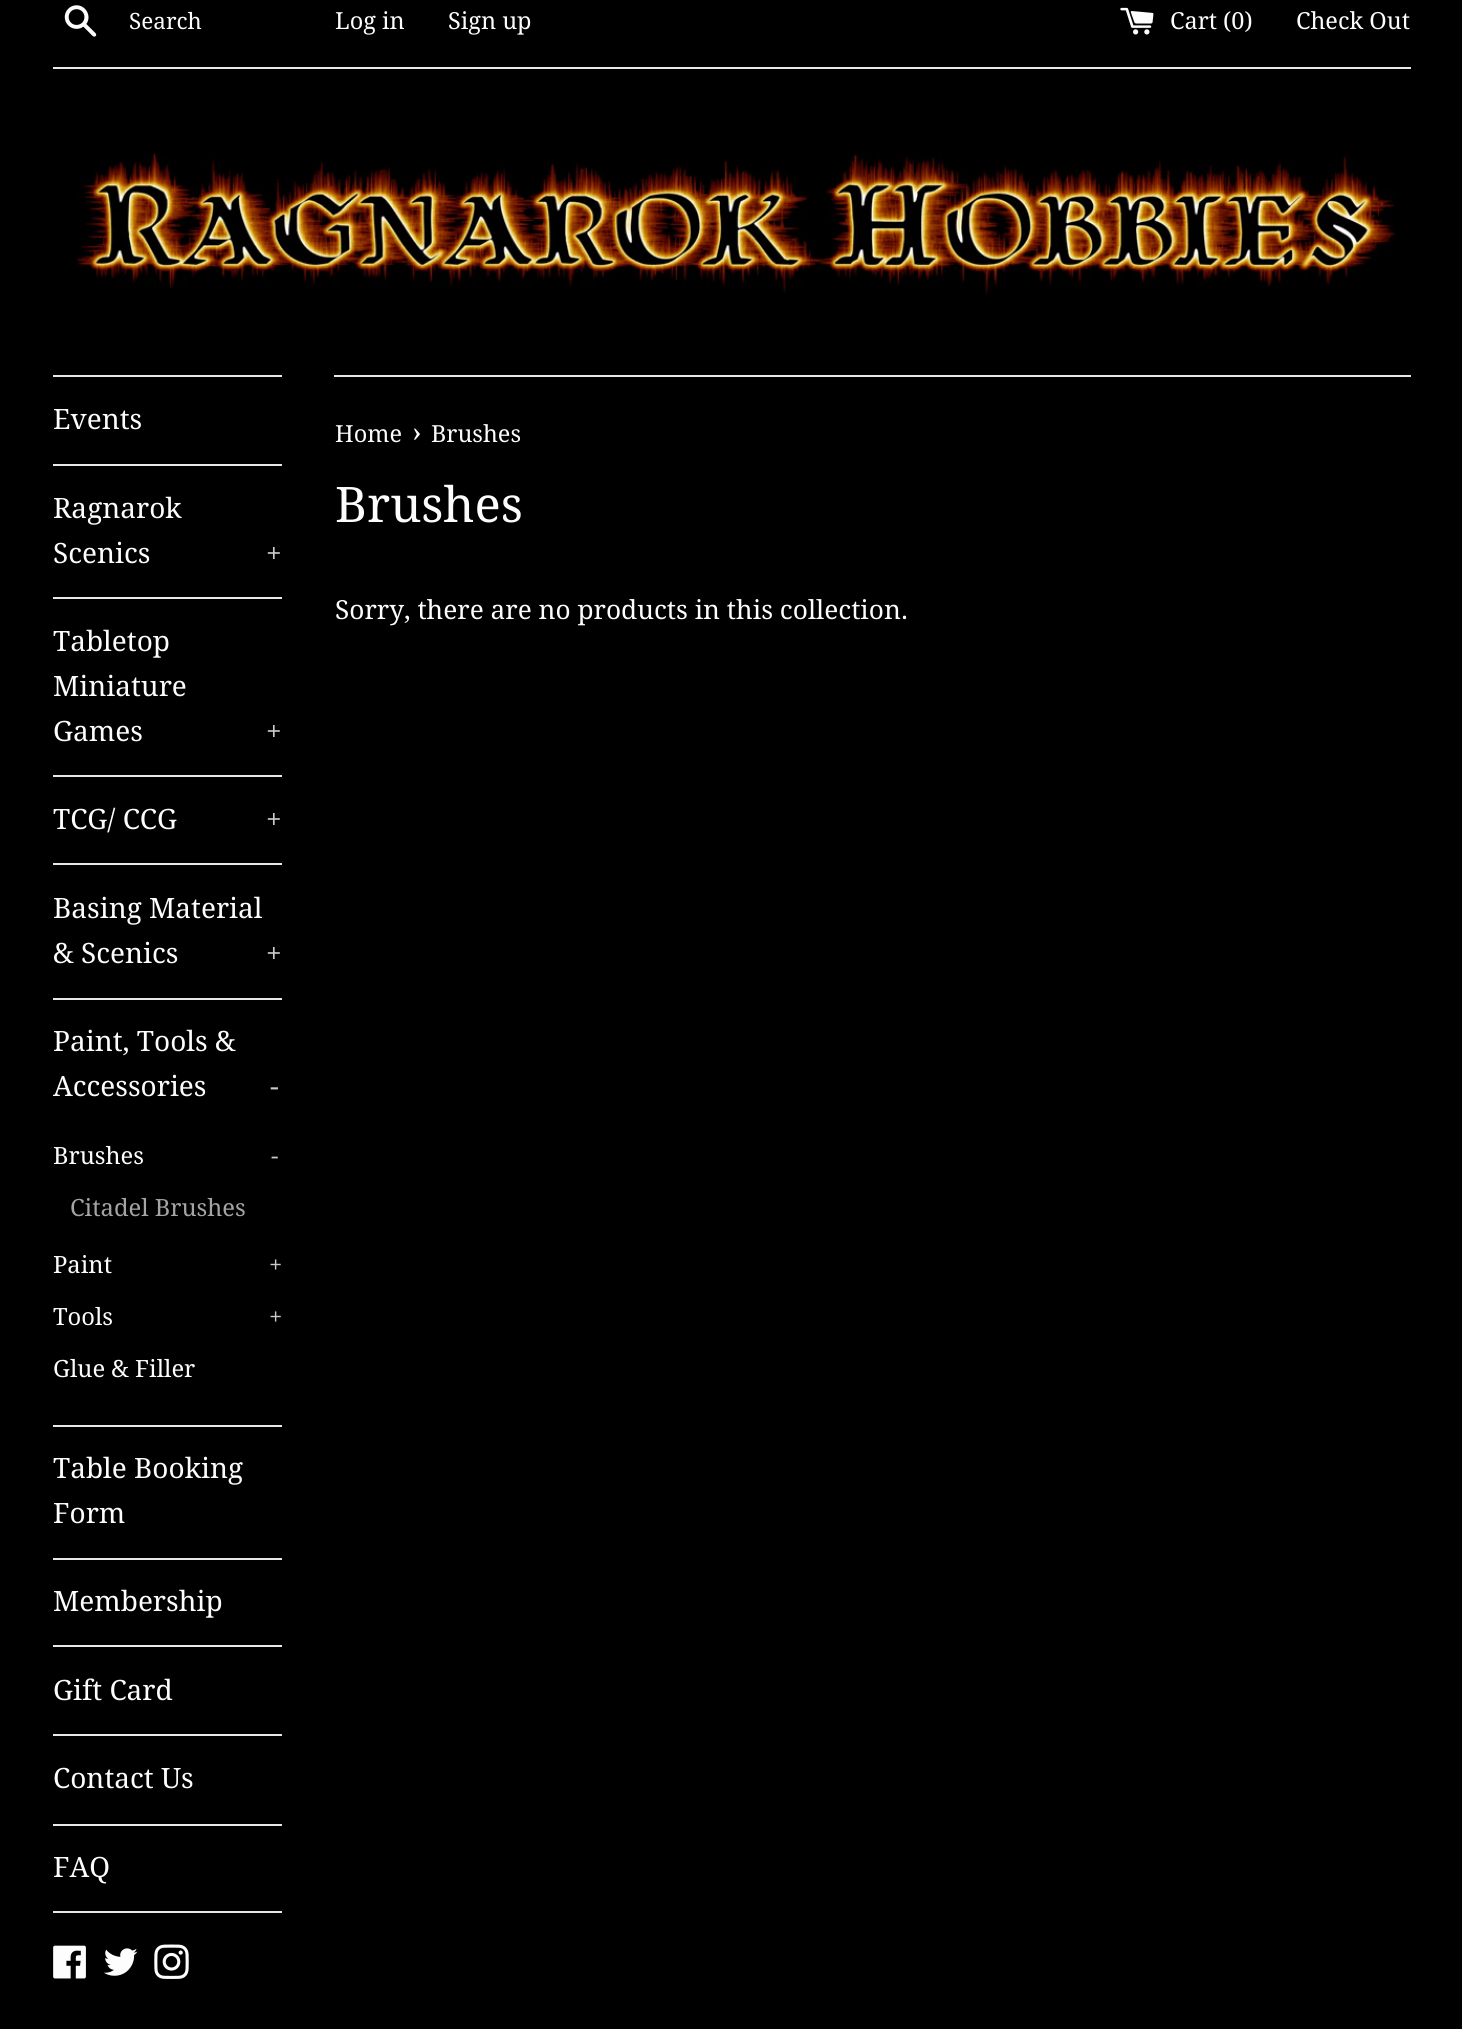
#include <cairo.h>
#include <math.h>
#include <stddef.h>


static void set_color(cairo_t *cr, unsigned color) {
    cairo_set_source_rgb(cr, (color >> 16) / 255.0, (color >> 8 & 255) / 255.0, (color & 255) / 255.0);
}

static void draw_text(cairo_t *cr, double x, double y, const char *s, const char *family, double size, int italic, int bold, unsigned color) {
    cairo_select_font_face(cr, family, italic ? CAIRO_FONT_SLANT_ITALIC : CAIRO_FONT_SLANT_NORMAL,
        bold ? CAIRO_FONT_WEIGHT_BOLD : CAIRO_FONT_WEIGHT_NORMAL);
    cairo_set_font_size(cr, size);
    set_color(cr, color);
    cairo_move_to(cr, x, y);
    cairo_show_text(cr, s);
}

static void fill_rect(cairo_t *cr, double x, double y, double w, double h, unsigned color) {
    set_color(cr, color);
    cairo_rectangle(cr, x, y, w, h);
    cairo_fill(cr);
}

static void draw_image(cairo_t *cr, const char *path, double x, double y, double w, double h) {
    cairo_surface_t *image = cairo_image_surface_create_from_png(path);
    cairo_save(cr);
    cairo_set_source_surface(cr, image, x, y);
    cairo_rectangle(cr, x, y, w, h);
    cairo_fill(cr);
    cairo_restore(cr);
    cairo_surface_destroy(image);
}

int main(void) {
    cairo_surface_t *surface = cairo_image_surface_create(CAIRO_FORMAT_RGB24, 1462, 2029);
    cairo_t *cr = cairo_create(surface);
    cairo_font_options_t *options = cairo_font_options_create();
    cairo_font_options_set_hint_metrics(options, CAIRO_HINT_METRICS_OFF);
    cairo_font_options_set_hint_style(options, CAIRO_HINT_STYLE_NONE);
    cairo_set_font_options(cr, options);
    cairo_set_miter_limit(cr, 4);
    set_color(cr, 0x000000);
    cairo_paint(cr);
    draw_image(cr, "assets/img1.png", 64, 5, 33, 32);
    draw_text(cr, 129, 29, "Search", "Droid Serif", 22.5, 0, 0, 0xFDFDFD);
    draw_text(cr, 335, 29, "Log in", "Droid Serif", 23.5, 0, 0, 0xFDFDFD);
    draw_text(cr, 448, 29, "Sign up", "Droid Serif", 23.5, 0, 0, 0xFDFDFD);
    draw_image(cr, "assets/img2.png", 1120, 7, 34, 28);
    draw_text(cr, 1170, 29, "Cart (0)", "Droid Serif", 23.5, 0, 0, 0xFDFDFD);
    draw_text(cr, 1296, 29, "Check Out", "Droid Serif", 23.5, 0, 0, 0xFDFDFD);
    fill_rect(cr, 53, 67, 1358, 2, 0xE8E8E8);
    draw_image(cr, "assets/img3.png", 76, 153, 1320, 142);
    fill_rect(cr, 53, 375, 229, 2, 0xE8E8E8);
    fill_rect(cr, 53, 464, 229, 2, 0xE8E8E8);
    draw_text(cr, 53, 429, "Events", "Droid Serif", 28, 0, 0, 0xFDFDFD);
    fill_rect(cr, 53, 597, 229, 2, 0xE8E8E8);
    draw_text(cr, 53, 518, "Ragnarok", "Droid Serif", 28, 0, 0, 0xFDFDFD);
    draw_text(cr, 53, 563, "Scenics", "Droid Serif", 28, 0, 0, 0xFDFDFD);
    draw_text(cr, 266, 563, "+", "Droid Serif", 28, 0, 0, 0xCACACA);
    fill_rect(cr, 53, 775, 229, 2, 0xE8E8E8);
    draw_text(cr, 53, 651, "Tabletop", "Droid Serif", 28, 0, 0, 0xFDFDFD);
    draw_text(cr, 53, 696, "Miniature", "Droid Serif", 28, 0, 0, 0xFDFDFD);
    draw_text(cr, 53, 741, "Games", "Droid Serif", 28, 0, 0, 0xFDFDFD);
    draw_text(cr, 266, 741, "+", "Droid Serif", 28, 0, 0, 0xCACACA);
    fill_rect(cr, 53, 863, 229, 2, 0xE8E8E8);
    draw_text(cr, 53, 829, "TCG/ CCG", "Droid Serif", 28, 0, 0, 0xFDFDFD);
    draw_text(cr, 266, 829, "+", "Droid Serif", 28, 0, 0, 0xCACACA);
    fill_rect(cr, 53, 998, 229, 2, 0xE8E8E8);
    draw_text(cr, 53, 918, "Basing Material", "Droid Serif", 28, 0, 0, 0xFDFDFD);
    draw_text(cr, 53, 963, "& Scenics", "Droid Serif", 28, 0, 0, 0xFDFDFD);
    draw_text(cr, 266, 963, "+", "Droid Serif", 28, 0, 0, 0xCACACA);
    fill_rect(cr, 53, 1425, 229, 2, 0xE8E8E8);
    draw_text(cr, 53, 1051, "Paint, Tools &", "Droid Serif", 28, 0, 0, 0xFDFDFD);
    draw_text(cr, 53, 1096, "Accessories", "Droid Serif", 28, 0, 0, 0xFDFDFD);
    draw_text(cr, 270, 1096, "-", "Droid Serif", 28, 0, 0, 0xCACACA);
    draw_text(cr, 53, 1164, "Brushes", "Droid Serif", 23.75, 0, 0, 0xFDFDFD);
    draw_text(cr, 271, 1164, "-", "Droid Serif", 23.75, 0, 0, 0xCACACA);
    draw_text(cr, 70, 1216, "Citadel Brushes", "Droid Serif", 23.75, 0, 0, 0xA4A4A4);
    draw_text(cr, 53, 1273, "Paint", "Droid Serif", 23.75, 0, 0, 0xFDFDFD);
    draw_text(cr, 269, 1273, "+", "Droid Serif", 23.75, 0, 0, 0xCACACA);
    draw_text(cr, 53, 1325, "Tools", "Droid Serif", 23.75, 0, 0, 0xFDFDFD);
    draw_text(cr, 269, 1325, "+", "Droid Serif", 23.75, 0, 0, 0xCACACA);
    draw_text(cr, 53, 1377, "Glue & Filler", "Droid Serif", 23.75, 0, 0, 0xFDFDFD);
    fill_rect(cr, 53, 1558, 229, 2, 0xE8E8E8);
    draw_text(cr, 53, 1478, "Table Booking", "Droid Serif", 28, 0, 0, 0xFDFDFD);
    draw_text(cr, 53, 1523, "Form", "Droid Serif", 28, 0, 0, 0xFDFDFD);
    fill_rect(cr, 53, 1645, 229, 2, 0xE8E8E8);
    draw_text(cr, 53, 1611, "Membership", "Droid Serif", 28, 0, 0, 0xFDFDFD);
    fill_rect(cr, 53, 1734, 229, 2, 0xE8E8E8);
    draw_text(cr, 53, 1700, "Gift Card", "Droid Serif", 28, 0, 0, 0xFDFDFD);
    fill_rect(cr, 53, 1824, 229, 2, 0xE8E8E8);
    draw_text(cr, 53, 1788, "Contact Us", "Droid Serif", 28, 0, 0, 0xFDFDFD);
    fill_rect(cr, 53, 1911, 229, 2, 0xE8E8E8);
    draw_text(cr, 53, 1877, "FAQ", "Droid Serif", 28, 0, 0, 0xFDFDFD);
    draw_image(cr, "assets/img4.png", 53, 1945, 33, 34);
    draw_image(cr, "assets/img5.png", 104, 1948, 34, 28);
    draw_image(cr, "assets/img6.png", 154, 1944, 35, 35);
    fill_rect(cr, 334, 375, 1077, 2, 0xE8E8E8);
    draw_text(cr, 335, 442, "Home", "Droid Serif", 23.5, 0, 0, 0xFDFDFD);
    draw_text(cr, 412, 442, "›", "Droid Serif", 29, 0, 0, 0xFDFDFD);
    draw_text(cr, 431, 442, "Brushes", "Droid Serif", 23.5, 0, 0, 0xFDFDFD);
    draw_text(cr, 335, 522, "Brushes", "Droid Serif", 49, 0, 0, 0xFDFDFD);
    draw_text(cr, 335, 619, "Sorry, there are no products in this collection.", "Droid Serif", 26.25, 0, 0, 0xFDFDFD);
    cairo_surface_write_to_png(surface, "output.png");
    cairo_font_options_destroy(options);
    cairo_destroy(cr);
    cairo_surface_destroy(surface);
    return 0;
}
